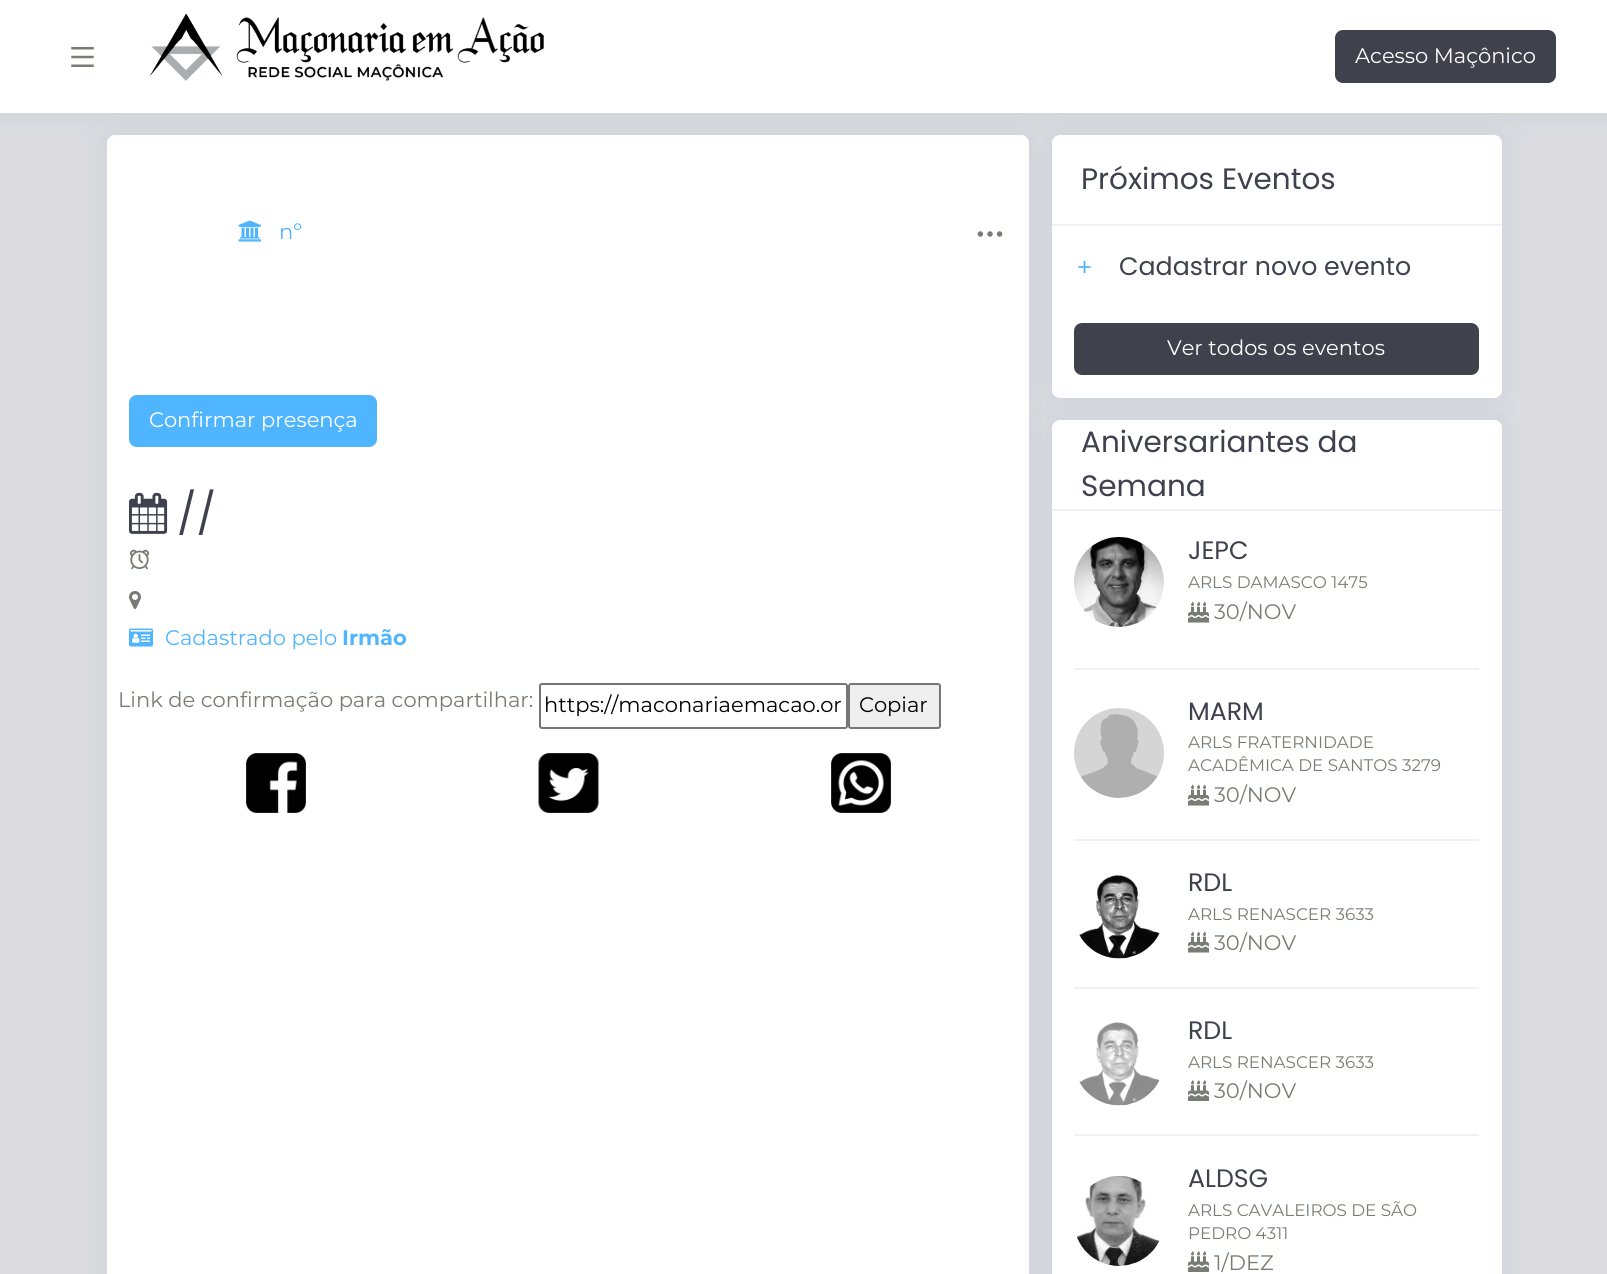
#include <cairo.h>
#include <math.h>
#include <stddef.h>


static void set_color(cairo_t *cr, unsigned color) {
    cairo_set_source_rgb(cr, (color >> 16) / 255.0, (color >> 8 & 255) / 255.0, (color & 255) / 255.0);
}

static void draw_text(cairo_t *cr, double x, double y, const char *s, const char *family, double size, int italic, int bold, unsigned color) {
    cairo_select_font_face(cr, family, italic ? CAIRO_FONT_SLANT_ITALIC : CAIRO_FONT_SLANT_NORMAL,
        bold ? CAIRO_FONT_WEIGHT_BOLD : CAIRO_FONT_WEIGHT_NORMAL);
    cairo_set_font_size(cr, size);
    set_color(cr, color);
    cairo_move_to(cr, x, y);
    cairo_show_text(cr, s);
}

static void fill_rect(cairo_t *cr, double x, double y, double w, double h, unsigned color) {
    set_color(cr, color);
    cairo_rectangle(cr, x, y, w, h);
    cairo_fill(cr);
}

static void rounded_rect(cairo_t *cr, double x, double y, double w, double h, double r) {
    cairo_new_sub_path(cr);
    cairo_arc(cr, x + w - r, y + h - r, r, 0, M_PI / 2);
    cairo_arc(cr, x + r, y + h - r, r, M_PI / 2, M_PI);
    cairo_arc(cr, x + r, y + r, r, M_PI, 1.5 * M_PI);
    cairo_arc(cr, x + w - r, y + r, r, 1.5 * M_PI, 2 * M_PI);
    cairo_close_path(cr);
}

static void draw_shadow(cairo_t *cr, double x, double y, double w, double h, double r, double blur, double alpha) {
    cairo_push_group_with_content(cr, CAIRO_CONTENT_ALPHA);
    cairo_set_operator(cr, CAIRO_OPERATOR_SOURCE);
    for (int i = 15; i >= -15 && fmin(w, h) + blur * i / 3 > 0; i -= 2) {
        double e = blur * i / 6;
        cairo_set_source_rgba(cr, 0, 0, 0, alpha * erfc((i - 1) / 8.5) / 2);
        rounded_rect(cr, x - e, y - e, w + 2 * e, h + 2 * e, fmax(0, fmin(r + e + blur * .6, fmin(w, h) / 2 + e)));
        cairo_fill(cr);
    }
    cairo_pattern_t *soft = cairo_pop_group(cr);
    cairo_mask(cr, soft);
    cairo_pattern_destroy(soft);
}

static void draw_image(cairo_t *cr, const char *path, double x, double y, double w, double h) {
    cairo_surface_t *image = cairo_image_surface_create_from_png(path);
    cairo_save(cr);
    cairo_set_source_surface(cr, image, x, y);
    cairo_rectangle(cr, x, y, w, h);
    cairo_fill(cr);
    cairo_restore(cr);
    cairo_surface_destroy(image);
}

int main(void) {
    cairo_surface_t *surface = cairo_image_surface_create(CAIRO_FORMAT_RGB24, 1607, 1274);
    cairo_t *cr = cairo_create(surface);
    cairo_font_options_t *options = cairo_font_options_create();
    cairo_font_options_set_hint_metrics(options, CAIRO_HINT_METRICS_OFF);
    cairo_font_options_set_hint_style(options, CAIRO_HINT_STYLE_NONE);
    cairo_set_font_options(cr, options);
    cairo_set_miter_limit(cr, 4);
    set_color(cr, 0xDCDCE0);
    cairo_paint(cr);
    set_color(cr, 0x2C6590);
    draw_shadow(cr, 107, 135, 922, 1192, 8, 15, 0.1);
    set_color(cr, 0xFFFFFF);
    rounded_rect(cr, 107, 135, 922, 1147, 8);
    cairo_fill(cr);
    set_color(cr, 0x2C6590);
    draw_shadow(cr, 1052, 135, 450, 263, 8, 15, 0.1);
    set_color(cr, 0xFFFFFF);
    rounded_rect(cr, 1052, 135, 450, 263, 8);
    cairo_fill(cr);
    set_color(cr, 0x2C6590);
    draw_shadow(cr, 0, 0, 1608, 113, 0, 15, 0.1);
    fill_rect(cr, 0, 0, 1607, 113, 0xFFFFFF);
    draw_image(cr, "assets/img1.png", 71, 47, 23, 20);
    draw_image(cr, "assets/img2.png", 150, 14, 394, 67);
    set_color(cr, 0x3F414D);
    rounded_rect(cr, 1336, 31, 219, 51, 7);
    cairo_fill_preserve(cr);
    cairo_stroke(cr);
    draw_text(cr, 1355, 63, "Acesso Maçônico", "Montserrat", 21, 0, 0, 0xFFFFFF);
    draw_image(cr, "assets/img3.png", 238, 220, 23, 22);
    draw_text(cr, 279, 239, "nº", "Montserrat", 21, 0, 0, 0x50B5FF);
    draw_image(cr, "assets/img4.png", 977, 231, 26, 6);
    rounded_rect(cr, 130, 396, 246, 50, 7);
    cairo_fill_preserve(cr);
    cairo_stroke(cr);
    draw_text(cr, 149, 427, "Confirmar presença", "Montserrat", 21, 0, 0, 0xFFFFFF);
    draw_image(cr, "assets/img5.png", 129, 492, 39, 42);
    draw_text(cr, 177, 528, "//", "Poppins", 41, 0, 0, 0x3F414D);
    draw_image(cr, "assets/img6.png", 129, 549, 21, 21);
    draw_image(cr, "assets/img7.png", 129, 591, 12, 18);
    draw_image(cr, "assets/img8.png", 129, 628, 24, 19);
    draw_text(cr, 165, 645, "Cadastrado pelo", "Montserrat", 21, 0, 0, 0x50B5FF);
    draw_text(cr, 342, 645, "Irmão", "Montserrat", 21, 0, 1, 0x50B5FF);
    draw_text(cr, 118, 707, "Link de confirmação para compartilhar:", "Montserrat", 21, 0, 0, 0x777D74);
    rounded_rect(cr, 540, 684, 307, 44, 2);
    set_color(cr, 0x767676);
    cairo_stroke(cr);
    draw_text(cr, 544, 712, "https://maconariaemacao.or", "Montserrat", 21, 0, 0, 0x000000);
    set_color(cr, 0xEFEFEF);
    rounded_rect(cr, 849, 684, 91, 44, 2);
    cairo_fill_preserve(cr);
    set_color(cr, 0x767676);
    cairo_stroke(cr);
    draw_text(cr, 859, 712, "Copiar", "Montserrat", 21, 0, 0, 0x000000);
    draw_image(cr, "assets/img9.png", 246, 753, 60, 60);
    draw_image(cr, "assets/img10.png", 538, 753, 61, 60);
    draw_image(cr, "assets/img11.png", 831, 753, 60, 60);
    fill_rect(cr, 1052, 224, 450, 2, 0xF1F1F1);
    draw_text(cr, 1081, 189, "Próximos Eventos", "Poppins", 29.5, 0, 0, 0x3F414D);
    draw_image(cr, "assets/img12.png", 1078, 260, 13, 14);
    draw_text(cr, 1119, 275, "Cadastrar novo evento", "Poppins", 25.25, 0, 0, 0x3F414D);
    rounded_rect(cr, 1075, 324, 403, 50, 7);
    cairo_fill_preserve(cr);
    cairo_stroke(cr);
    draw_text(cr, 1167, 355, "Ver todos os eventos", "Montserrat", 21, 0, 0, 0xFFFFFF);
    set_color(cr, 0x2C6590);
    draw_shadow(cr, 1052, 420, 450, 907, 8, 15, 0.1);
    set_color(cr, 0xFFFFFF);
    rounded_rect(cr, 1052, 420, 450, 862, 8);
    cairo_fill(cr);
    fill_rect(cr, 1052, 509, 450, 2, 0xF1F1F1);
    draw_text(cr, 1081, 452, "Aniversariantes da", "Poppins", 29.5, 0, 0, 0x3F414D);
    draw_text(cr, 1081, 496, "Semana", "Poppins", 29.5, 0, 0, 0x3F414D);
    draw_image(cr, "assets/img13.png", 1074, 537, 90, 90);
    draw_text(cr, 1188, 559, "JEPC", "Poppins", 25.25, 0, 0, 0x3F414D);
    draw_text(cr, 1188, 588, "ARLS DAMASCO 1475", "Montserrat", 16.75, 0, 0, 0x777D74);
    draw_image(cr, "assets/img14.png", 1188, 601, 21, 22);
    draw_text(cr, 1214, 619, "30/NOV", "Montserrat", 21, 0, 0, 0x777D74);
    fill_rect(cr, 1074, 668, 405, 2, 0xF1F1F1);
    draw_image(cr, "assets/img15.png", 1074, 708, 90, 90);
    draw_text(cr, 1188, 720, "MARM", "Poppins", 25.25, 0, 0, 0x3F414D);
    draw_text(cr, 1188, 748, "ARLS FRATERNIDADE", "Montserrat", 16.75, 0, 0, 0x777D74);
    draw_text(cr, 1188, 771, "ACADÊMICA DE SANTOS 3279", "Montserrat", 16.75, 0, 0, 0x777D74);
    draw_image(cr, "assets/img14.png", 1188, 784, 21, 22);
    draw_text(cr, 1214, 802, "30/NOV", "Montserrat", 21, 0, 0, 0x777D74);
    fill_rect(cr, 1074, 839, 405, 2, 0xF1F1F1);
    draw_image(cr, "assets/img16.png", 1079, 875, 81, 84);
    draw_text(cr, 1188, 891, "RDL", "Poppins", 25.25, 0, 0, 0x3F414D);
    draw_text(cr, 1188, 920, "ARLS RENASCER 3633", "Montserrat", 16.75, 0, 0, 0x777D74);
    draw_image(cr, "assets/img14.png", 1188, 931, 21, 22);
    draw_text(cr, 1214, 950, "30/NOV", "Montserrat", 21, 0, 0, 0x777D74);
    fill_rect(cr, 1074, 987, 405, 2, 0xF1F1F1);
    draw_image(cr, "assets/img17.png", 1079, 1022, 81, 84);
    draw_text(cr, 1188, 1039, "RDL", "Poppins", 25.25, 0, 0, 0x3F414D);
    draw_text(cr, 1188, 1068, "ARLS RENASCER 3633", "Montserrat", 16.75, 0, 0, 0x777D74);
    draw_image(cr, "assets/img18.png", 1188, 1080, 21, 21);
    draw_text(cr, 1214, 1098, "30/NOV", "Montserrat", 21, 0, 0, 0x777D74);
    fill_rect(cr, 1074, 1134, 405, 2, 0xF1F1F1);
    draw_image(cr, "assets/img19.png", 1076, 1176, 84, 90);
    draw_text(cr, 1188, 1187, "ALDSG", "Poppins", 25.25, 0, 0, 0x3F414D);
    draw_text(cr, 1188, 1216, "ARLS CAVALEIROS DE SÃO", "Montserrat", 16.75, 0, 0, 0x777D74);
    draw_text(cr, 1188, 1239, "PEDRO 4311", "Montserrat", 16.75, 0, 0, 0x777D74);
    draw_image(cr, "assets/img18.png", 1188, 1251, 21, 21);
    draw_text(cr, 1214, 1270, "1/DEZ", "Montserrat", 21, 0, 0, 0x777D74);
    cairo_surface_write_to_png(surface, "output.png");
    cairo_font_options_destroy(options);
    cairo_destroy(cr);
    cairo_surface_destroy(surface);
    return 0;
}
